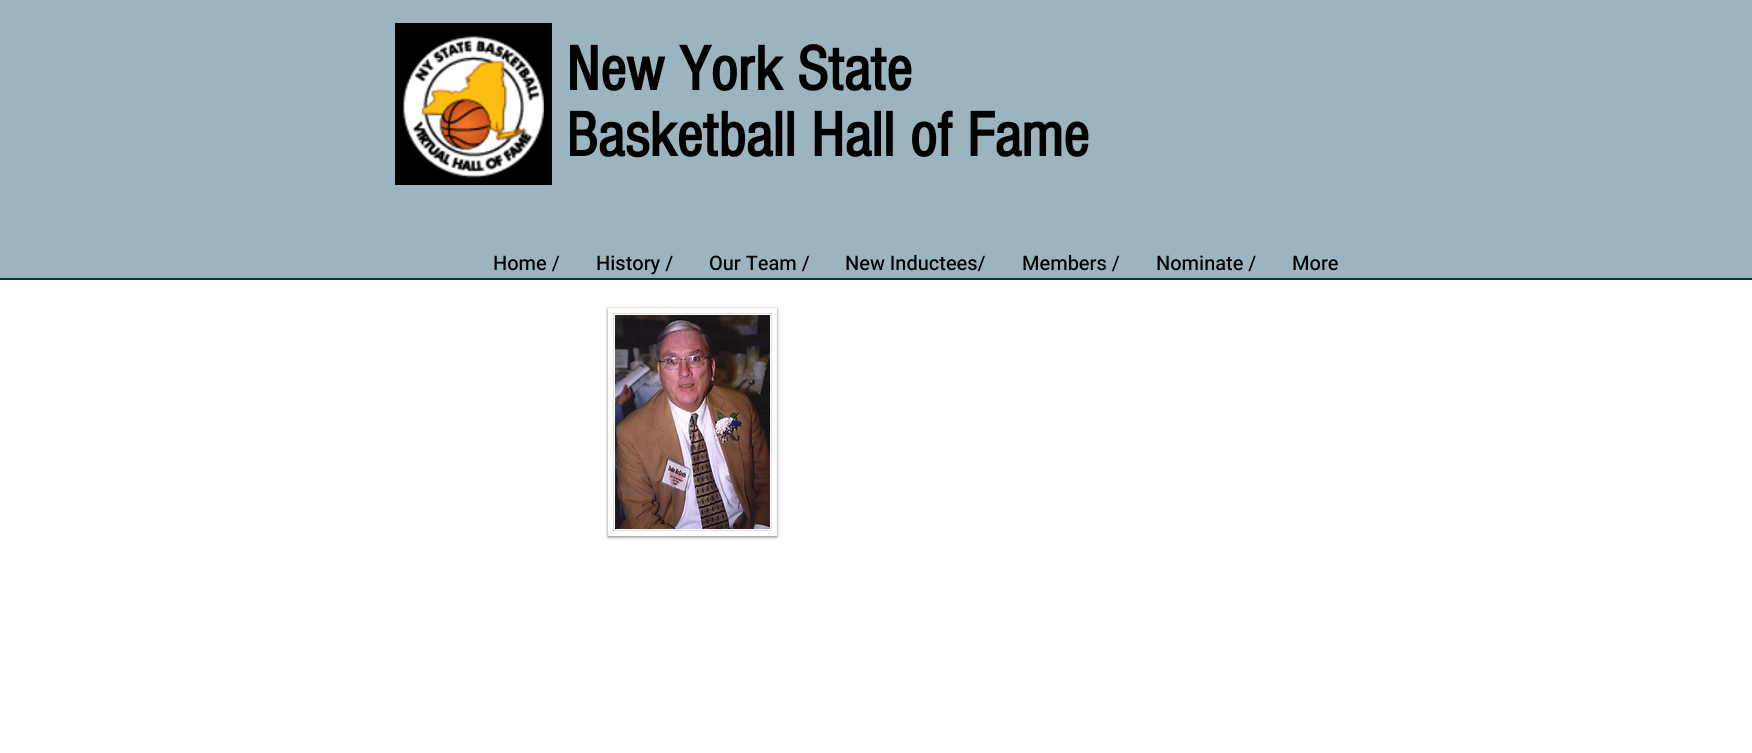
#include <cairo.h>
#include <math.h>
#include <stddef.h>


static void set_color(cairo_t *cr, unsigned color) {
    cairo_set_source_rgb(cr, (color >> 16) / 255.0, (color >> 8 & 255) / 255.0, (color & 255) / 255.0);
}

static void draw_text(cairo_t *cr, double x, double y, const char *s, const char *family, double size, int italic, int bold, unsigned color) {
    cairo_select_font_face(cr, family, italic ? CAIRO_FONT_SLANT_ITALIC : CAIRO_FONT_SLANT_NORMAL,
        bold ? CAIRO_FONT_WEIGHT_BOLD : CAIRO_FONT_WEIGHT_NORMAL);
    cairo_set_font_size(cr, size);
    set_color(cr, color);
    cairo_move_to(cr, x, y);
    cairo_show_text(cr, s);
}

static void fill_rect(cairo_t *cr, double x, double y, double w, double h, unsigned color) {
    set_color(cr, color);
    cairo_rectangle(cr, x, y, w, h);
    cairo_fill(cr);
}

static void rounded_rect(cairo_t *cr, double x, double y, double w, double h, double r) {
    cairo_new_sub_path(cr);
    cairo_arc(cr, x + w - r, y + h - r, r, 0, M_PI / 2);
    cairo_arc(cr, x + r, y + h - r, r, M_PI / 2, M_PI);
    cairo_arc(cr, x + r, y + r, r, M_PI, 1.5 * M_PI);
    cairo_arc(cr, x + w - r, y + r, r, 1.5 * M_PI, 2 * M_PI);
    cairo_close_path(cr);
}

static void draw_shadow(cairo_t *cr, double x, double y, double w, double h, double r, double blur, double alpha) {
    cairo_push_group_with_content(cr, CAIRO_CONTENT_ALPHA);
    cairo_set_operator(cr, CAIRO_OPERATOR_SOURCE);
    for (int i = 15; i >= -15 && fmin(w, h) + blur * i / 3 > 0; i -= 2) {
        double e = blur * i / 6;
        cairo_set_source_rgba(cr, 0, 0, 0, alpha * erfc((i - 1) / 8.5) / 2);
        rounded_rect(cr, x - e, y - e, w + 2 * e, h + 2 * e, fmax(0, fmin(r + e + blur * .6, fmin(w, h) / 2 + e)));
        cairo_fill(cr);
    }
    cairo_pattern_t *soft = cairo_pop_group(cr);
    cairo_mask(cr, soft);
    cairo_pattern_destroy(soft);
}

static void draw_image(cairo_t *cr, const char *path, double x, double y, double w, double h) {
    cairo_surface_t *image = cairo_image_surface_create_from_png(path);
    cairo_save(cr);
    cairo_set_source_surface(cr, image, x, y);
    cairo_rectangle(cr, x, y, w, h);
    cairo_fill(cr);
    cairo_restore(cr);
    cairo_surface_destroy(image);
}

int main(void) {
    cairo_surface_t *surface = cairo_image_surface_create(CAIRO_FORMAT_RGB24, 1752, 753);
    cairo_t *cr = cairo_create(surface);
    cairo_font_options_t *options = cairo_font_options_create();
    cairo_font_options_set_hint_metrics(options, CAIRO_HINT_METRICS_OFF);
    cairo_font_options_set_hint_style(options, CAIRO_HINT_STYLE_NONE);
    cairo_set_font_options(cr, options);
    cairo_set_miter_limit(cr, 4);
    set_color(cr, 0x074361);
    cairo_paint(cr);
    set_color(cr, 0x000000);
    draw_shadow(cr, 0, 0, 1752, 278, 0, 2.5, 0.7);
    fill_rect(cr, 0, 0, 1752, 278, 0x9CB4C0);
    draw_image(cr, "assets/img1.png", 395, 23, 157, 162);
    draw_text(cr, 566, 90, "New York State", "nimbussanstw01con", 65, 0, 1, 0x000000);
    draw_text(cr, 566, 156, "Basketball Hall of Fame", "nimbussanstw01con", 65, 0, 1, 0x000000);
    draw_text(cr, 493, 270, "Home /", "Heebo Medium", 20, 0, 0, 0x000000);
    draw_text(cr, 596, 270, "History /", "Heebo Medium", 20, 0, 0, 0x000000);
    draw_text(cr, 709, 270, "Our Team /", "Heebo Medium", 20, 0, 0, 0x000000);
    draw_text(cr, 845, 270, "New Inductees/", "Heebo Medium", 20, 0, 0, 0x000000);
    draw_text(cr, 1022, 270, "Members /", "Heebo Medium", 20, 0, 0, 0x000000);
    draw_text(cr, 1156, 270, "Nominate /", "Heebo Medium", 20, 0, 0, 0x000000);
    draw_text(cr, 1292, 270, "More", "Heebo Medium", 20, 0, 0, 0x000000);
    fill_rect(cr, 0, 280, 1752, 473, 0xFFFFFF);
    cairo_save(cr);
    cairo_set_fill_rule(cr, CAIRO_FILL_RULE_EVEN_ODD);
    cairo_new_path(cr);
    cairo_move_to(cr, 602, 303);
    cairo_line_to(cr, 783, 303);
    cairo_line_to(cr, 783, 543);
    cairo_line_to(cr, 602, 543);
    cairo_close_path(cr);
    cairo_move_to(cr, 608, 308);
    cairo_line_to(cr, 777, 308);
    cairo_line_to(cr, 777, 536);
    cairo_line_to(cr, 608, 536);
    cairo_close_path(cr);
    cairo_clip(cr);
    set_color(cr, 0x000000);
    draw_shadow(cr, 608, 309, 169, 228, 0, 1.5, 0.5);
    cairo_restore(cr);
    draw_image(cr, "assets/img2.png", 615, 315, 155, 214);
    cairo_rectangle(cr, 613.5, 313.5, 158, 217);
    set_color(cr, 0xE5E0E0);
    cairo_set_line_width(cr, 1);
    cairo_stroke(cr);
    cairo_surface_write_to_png(surface, "output.png");
    cairo_font_options_destroy(options);
    cairo_destroy(cr);
    cairo_surface_destroy(surface);
    return 0;
}
